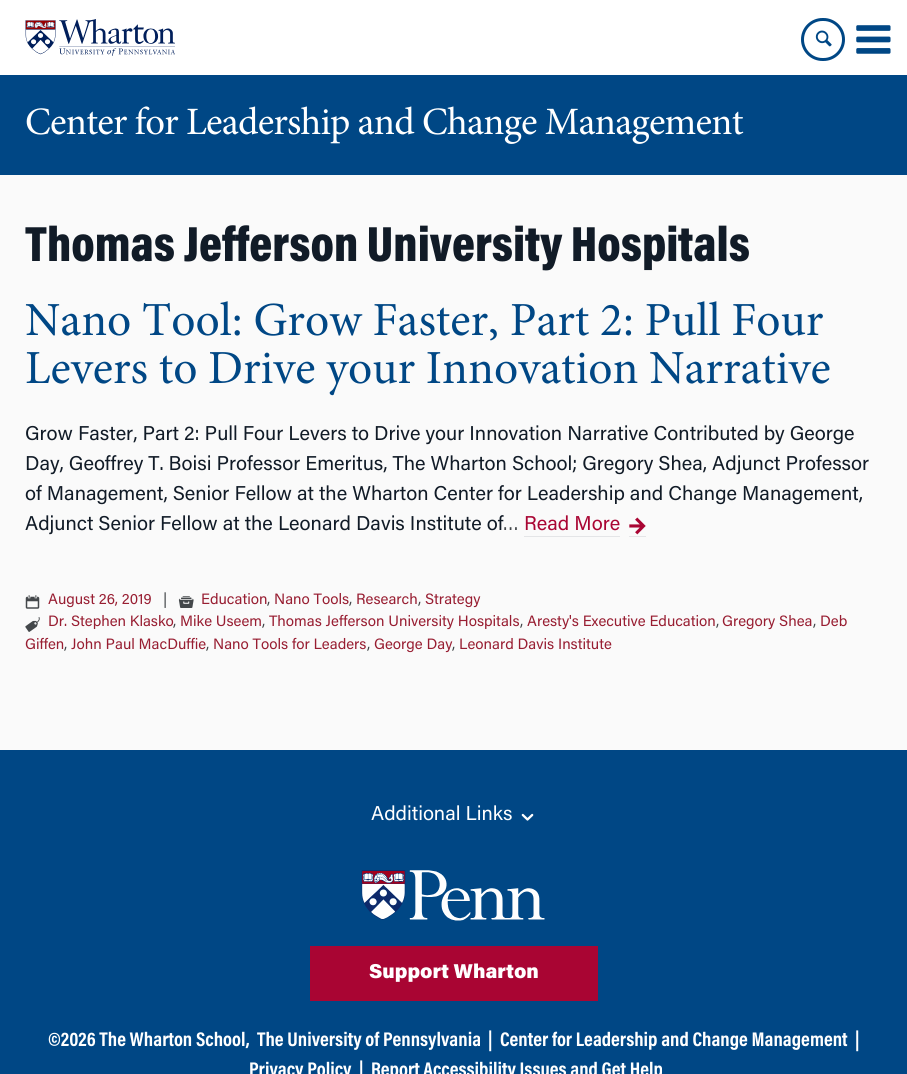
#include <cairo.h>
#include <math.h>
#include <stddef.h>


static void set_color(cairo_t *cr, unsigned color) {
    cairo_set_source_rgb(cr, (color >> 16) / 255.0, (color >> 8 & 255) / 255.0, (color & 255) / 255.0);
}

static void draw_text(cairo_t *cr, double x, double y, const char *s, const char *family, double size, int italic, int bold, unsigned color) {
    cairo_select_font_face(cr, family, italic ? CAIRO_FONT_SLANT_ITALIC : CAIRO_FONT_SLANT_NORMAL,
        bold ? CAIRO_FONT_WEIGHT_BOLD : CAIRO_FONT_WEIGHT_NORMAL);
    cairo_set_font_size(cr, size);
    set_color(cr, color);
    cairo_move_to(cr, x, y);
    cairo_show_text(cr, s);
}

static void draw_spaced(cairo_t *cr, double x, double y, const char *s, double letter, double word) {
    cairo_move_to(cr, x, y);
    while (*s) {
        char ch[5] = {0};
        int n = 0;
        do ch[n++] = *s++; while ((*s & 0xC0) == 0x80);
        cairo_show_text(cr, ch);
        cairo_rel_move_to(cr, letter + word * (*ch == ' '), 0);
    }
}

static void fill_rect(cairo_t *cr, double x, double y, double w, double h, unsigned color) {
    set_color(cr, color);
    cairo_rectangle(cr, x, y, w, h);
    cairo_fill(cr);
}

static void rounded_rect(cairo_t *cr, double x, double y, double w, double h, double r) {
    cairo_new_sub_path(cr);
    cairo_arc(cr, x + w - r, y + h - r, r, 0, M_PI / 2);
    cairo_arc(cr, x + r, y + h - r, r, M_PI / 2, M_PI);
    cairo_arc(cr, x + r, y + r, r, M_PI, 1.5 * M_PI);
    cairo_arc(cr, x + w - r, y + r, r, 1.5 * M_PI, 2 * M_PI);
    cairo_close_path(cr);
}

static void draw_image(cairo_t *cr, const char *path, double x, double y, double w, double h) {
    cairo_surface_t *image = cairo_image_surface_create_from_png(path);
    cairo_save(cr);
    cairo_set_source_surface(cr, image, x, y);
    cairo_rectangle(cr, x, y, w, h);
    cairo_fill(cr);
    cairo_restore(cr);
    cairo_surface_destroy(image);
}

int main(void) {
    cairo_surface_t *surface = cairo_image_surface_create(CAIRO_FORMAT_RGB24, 907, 1074);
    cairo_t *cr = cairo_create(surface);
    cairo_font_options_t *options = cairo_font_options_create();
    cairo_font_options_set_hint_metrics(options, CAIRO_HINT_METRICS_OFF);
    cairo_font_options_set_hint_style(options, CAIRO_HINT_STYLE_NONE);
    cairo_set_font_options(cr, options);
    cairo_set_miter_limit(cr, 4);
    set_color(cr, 0xFAFAFA);
    cairo_paint(cr);
    fill_rect(cr, 0, 0, 907, 75, 0xFFFFFF);
    draw_image(cr, "assets/img1.png", 25, 19, 150, 37);
    rounded_rect(cr, 802.5, 19.5, 41, 40, 20);
    set_color(cr, 0x004785);
    cairo_set_line_width(cr, 3);
    cairo_stroke(cr);
    draw_image(cr, "assets/img2.png", 815, 30, 17, 17);
    draw_image(cr, "assets/img3.png", 856, 25, 35, 29);
    fill_rect(cr, 0, 75, 907, 100, 0x004785);
    cairo_select_font_face(cr, "minion", CAIRO_FONT_SLANT_NORMAL, CAIRO_FONT_WEIGHT_NORMAL);
    cairo_set_font_size(cr, 38.75);
    set_color(cr, 0xFFFFFF);
    draw_spaced(cr, 25, 134, "Center for Leadership and Change Management", -0.75, 0);
    draw_text(cr, 25, 261, "Thomas Jefferson University Hospitals", "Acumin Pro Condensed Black", 50, 0, 0, 0x111B27);
    draw_text(cr, 25, 335, "Nano Tool: Grow Faster, Part 2: Pull Four", "minion", 47.5, 0, 0, 0x004785);
    draw_text(cr, 25, 383, "Levers to Drive your Innovation Narrative", "minion", 47.5, 0, 0, 0x004785);
    draw_text(cr, 25, 440, "Grow Faster, Part 2: Pull Four Levers to Drive your Innovation Narrative Contributed by George", "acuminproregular", 20, 0, 0, 0x111B27);
    draw_text(cr, 25, 470, "Day, Geoffrey T. Boisi Professor Emeritus, The Wharton School; Gregory Shea, Adjunct Professor", "acuminproregular", 20, 0, 0, 0x111B27);
    draw_text(cr, 25, 500, "of Management, Senior Fellow at the Wharton Center for Leadership and Change Management,", "acuminproregular", 20, 0, 0, 0x111B27);
    draw_text(cr, 25, 530, "Adjunct Senior Fellow at the Leonard Davis Institute of", "acuminproregular", 20, 0, 0, 0x111B27);
    draw_text(cr, 503, 530, "…", "acuminproregular", 19, 0, 0, 0x44484B);
    draw_text(cr, 524, 530, "Read More", "acuminproregular", 20, 0, 0, 0xA90533);
    fill_rect(cr, 524, 536, 96, 1, 0xE4E5E7);
    fill_rect(cr, 629, 536, 17, 1, 0xE4E5E7);
    draw_image(cr, "assets/img4.png", 629, 517, 17, 18);
    draw_image(cr, "assets/img5.png", 25, 595, 15, 14);
    draw_text(cr, 48, 604, "August 26, 2019", "acuminproregular", 15, 0, 0, 0x981E32);
    draw_text(cr, 163, 604, "|", "acuminproregular", 15, 0, 0, 0x44484B);
    draw_image(cr, "assets/img6.png", 178, 596, 16, 12);
    draw_text(cr, 201, 604, "Education", "acuminproregular", 15, 0, 0, 0x981E32);
    draw_text(cr, 267, 604, ",", "acuminproregular", 15, 0, 0, 0x44484B);
    draw_text(cr, 274, 604, "Nano Tools", "acuminproregular", 15, 0, 0, 0x981E32);
    draw_text(cr, 349, 604, ",", "acuminproregular", 15, 0, 0, 0x44484B);
    draw_text(cr, 356, 604, "Research", "acuminproregular", 15, 0, 0, 0x981E32);
    draw_text(cr, 418, 604, ",", "acuminproregular", 15, 0, 0, 0x44484B);
    draw_text(cr, 425, 604, "Strategy", "acuminproregular", 15, 0, 0, 0x981E32);
    draw_image(cr, "assets/img7.png", 25, 617, 15, 15);
    draw_text(cr, 48, 626, "Dr. Stephen Klasko", "acuminproregular", 15, 0, 0, 0x981E32);
    draw_text(cr, 173, 626, ",", "acuminproregular", 15, 0, 0, 0x44484B);
    draw_text(cr, 180, 626, "Mike Useem", "acuminproregular", 15, 0, 0, 0x981E32);
    draw_text(cr, 262, 626, ",", "acuminproregular", 15, 0, 0, 0x44484B);
    draw_text(cr, 269, 626, "Thomas Jefferson University Hospitals", "acuminproregular", 15, 0, 0, 0x981E32);
    draw_text(cr, 520, 626, ",", "acuminproregular", 15, 0, 0, 0x44484B);
    draw_text(cr, 527, 626, "Aresty's Executive Education", "acuminproregular", 15, 0, 0, 0x981E32);
    draw_text(cr, 716, 626, ",", "acuminproregular", 15, 0, 0, 0x44484B);
    draw_text(cr, 722, 626, "Gregory Shea", "acuminproregular", 15, 0, 0, 0x981E32);
    draw_text(cr, 813, 626, ",", "acuminproregular", 15, 0, 0, 0x44484B);
    draw_text(cr, 820, 626, "Deb", "acuminproregular", 15, 0, 0, 0x981E32);
    draw_text(cr, 25, 649, "Giffen", "acuminproregular", 15, 0, 0, 0x981E32);
    draw_text(cr, 64, 649, ",", "acuminproregular", 15, 0, 0, 0x44484B);
    draw_text(cr, 71, 649, "John Paul MacDuffie", "acuminproregular", 15, 0, 0, 0x981E32);
    draw_text(cr, 206, 649, ",", "acuminproregular", 15, 0, 0, 0x44484B);
    draw_text(cr, 213, 649, "Nano Tools for Leaders", "acuminproregular", 15, 0, 0, 0x981E32);
    draw_text(cr, 367, 649, ",", "acuminproregular", 15, 0, 0, 0x44484B);
    draw_text(cr, 374, 649, "George Day", "acuminproregular", 15, 0, 0, 0x981E32);
    draw_text(cr, 452, 649, ",", "acuminproregular", 15, 0, 0, 0x44484B);
    draw_text(cr, 459, 649, "Leonard Davis Institute", "acuminproregular", 15, 0, 0, 0x981E32);
    fill_rect(cr, 0, 750, 907, 324, 0x004785);
    draw_text(cr, 371, 820, "Additional Links", "acuminproregular", 20, 0, 0, 0xFFFFFF);
    draw_image(cr, "assets/img8.png", 521, 813, 13, 8);
    draw_image(cr, "assets/img9.png", 361, 870, 184, 51);
    fill_rect(cr, 310, 946, 288, 55, 0xA90533);
    draw_text(cr, 369, 978, "Support Wharton", "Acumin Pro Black", 20, 0, 0, 0xFFFFFF);
    draw_text(cr, 48, 1046, "©2026 The Wharton School,", "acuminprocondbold", 20, 0, 1, 0xFFFFFF);
    draw_text(cr, 257, 1046, "The University of Pennsylvania", "acuminprocondbold", 20, 0, 1, 0xFFFFFF);
    draw_text(cr, 488, 1046, "|", "acuminprocondbold", 20, 0, 1, 0xFFFFFF);
    draw_text(cr, 500, 1046, "Center for Leadership and Change Management", "acuminprocondbold", 20, 0, 1, 0xFFFFFF);
    draw_text(cr, 855, 1046, "|", "acuminprocondbold", 20, 0, 1, 0xFFFFFF);
    draw_text(cr, 249, 1076, "Privacy Policy", "acuminprocondbold", 20, 0, 1, 0xFFFFFF);
    draw_text(cr, 359, 1076, "|", "acuminprocondbold", 20, 0, 1, 0xFFFFFF);
    draw_text(cr, 371, 1076, "Report Accessibility Issues and Get Help", "acuminprocondbold", 20, 0, 1, 0xFFFFFF);
    cairo_surface_write_to_png(surface, "output.png");
    cairo_font_options_destroy(options);
    cairo_destroy(cr);
    cairo_surface_destroy(surface);
    return 0;
}
